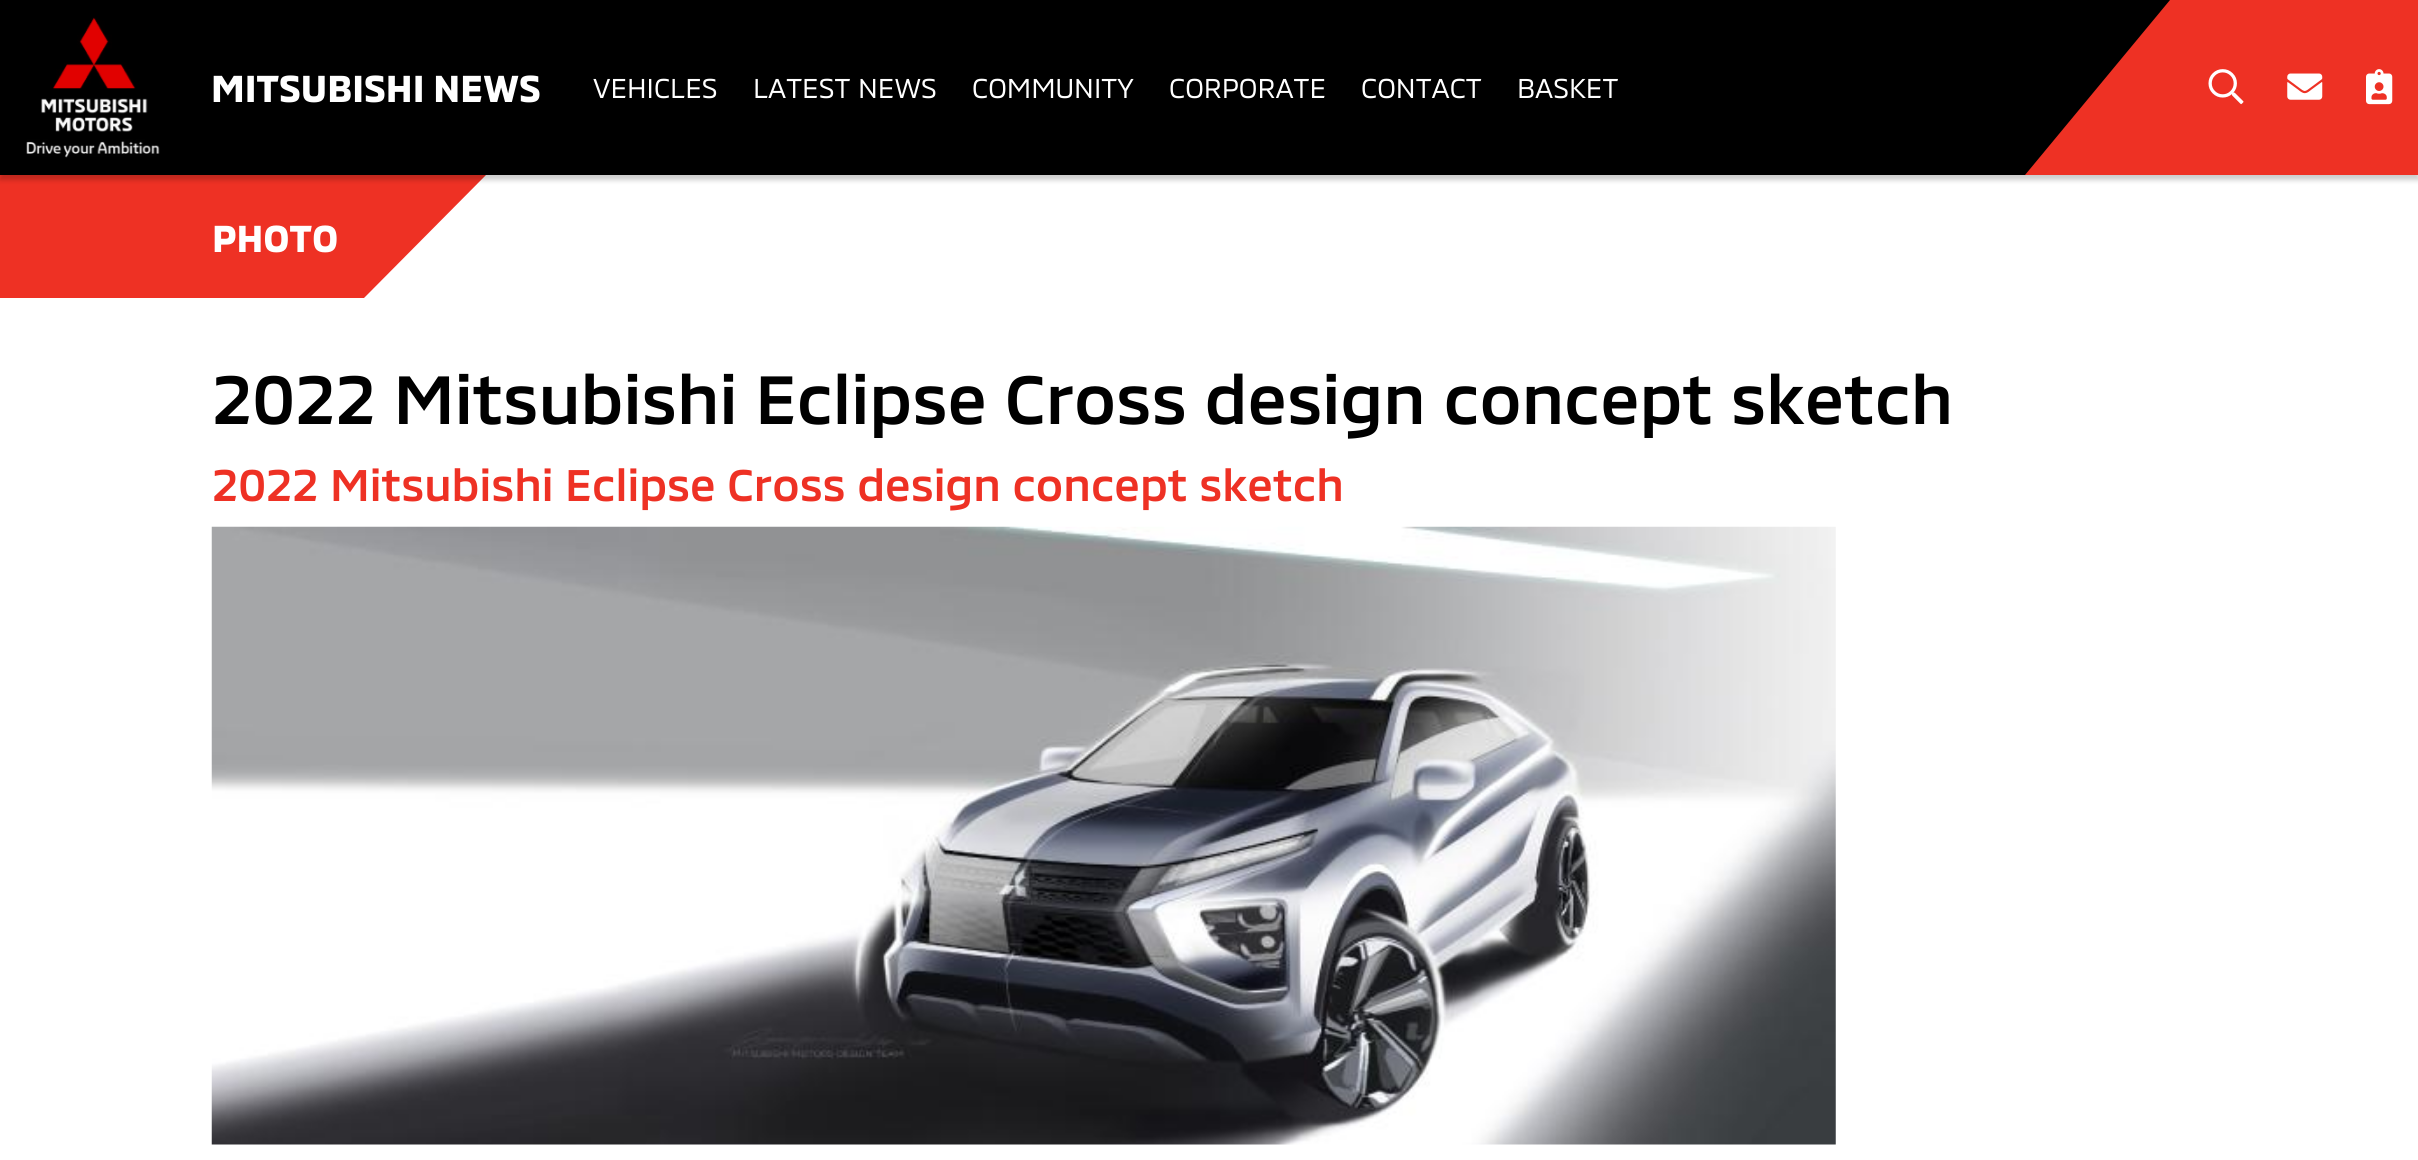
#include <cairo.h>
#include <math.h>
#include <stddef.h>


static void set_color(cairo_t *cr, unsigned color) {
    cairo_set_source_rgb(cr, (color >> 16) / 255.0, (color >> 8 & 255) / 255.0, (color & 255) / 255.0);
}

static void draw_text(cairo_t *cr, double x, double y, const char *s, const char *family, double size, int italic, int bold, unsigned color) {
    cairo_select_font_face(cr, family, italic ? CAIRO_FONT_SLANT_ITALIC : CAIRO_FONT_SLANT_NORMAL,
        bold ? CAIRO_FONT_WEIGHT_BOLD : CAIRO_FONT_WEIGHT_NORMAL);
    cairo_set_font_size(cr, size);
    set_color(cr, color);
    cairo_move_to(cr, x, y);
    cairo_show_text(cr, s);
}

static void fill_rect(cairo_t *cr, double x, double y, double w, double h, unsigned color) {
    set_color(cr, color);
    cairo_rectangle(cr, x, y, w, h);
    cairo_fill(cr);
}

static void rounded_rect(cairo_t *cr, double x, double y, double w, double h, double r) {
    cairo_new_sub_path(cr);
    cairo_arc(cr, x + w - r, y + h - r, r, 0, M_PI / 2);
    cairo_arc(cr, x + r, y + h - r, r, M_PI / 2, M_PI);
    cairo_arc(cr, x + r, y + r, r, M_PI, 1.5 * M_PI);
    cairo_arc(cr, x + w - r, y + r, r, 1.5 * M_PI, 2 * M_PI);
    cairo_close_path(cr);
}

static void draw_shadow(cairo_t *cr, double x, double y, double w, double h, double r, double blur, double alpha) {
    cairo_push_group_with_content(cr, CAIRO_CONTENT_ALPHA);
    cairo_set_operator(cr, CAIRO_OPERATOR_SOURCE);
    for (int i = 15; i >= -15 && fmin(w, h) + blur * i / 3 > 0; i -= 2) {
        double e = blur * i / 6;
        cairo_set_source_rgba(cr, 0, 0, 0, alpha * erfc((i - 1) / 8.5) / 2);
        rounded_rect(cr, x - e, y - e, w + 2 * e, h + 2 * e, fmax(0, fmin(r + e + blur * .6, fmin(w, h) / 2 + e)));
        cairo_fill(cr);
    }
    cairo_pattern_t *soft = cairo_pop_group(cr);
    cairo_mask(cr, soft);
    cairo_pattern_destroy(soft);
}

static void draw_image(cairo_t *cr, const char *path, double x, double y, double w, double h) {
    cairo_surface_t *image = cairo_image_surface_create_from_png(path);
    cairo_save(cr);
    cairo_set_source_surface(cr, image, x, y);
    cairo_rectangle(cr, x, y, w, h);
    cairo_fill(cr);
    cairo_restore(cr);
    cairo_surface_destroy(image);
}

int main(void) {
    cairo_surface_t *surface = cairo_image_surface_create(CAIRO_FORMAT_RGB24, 2418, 1160);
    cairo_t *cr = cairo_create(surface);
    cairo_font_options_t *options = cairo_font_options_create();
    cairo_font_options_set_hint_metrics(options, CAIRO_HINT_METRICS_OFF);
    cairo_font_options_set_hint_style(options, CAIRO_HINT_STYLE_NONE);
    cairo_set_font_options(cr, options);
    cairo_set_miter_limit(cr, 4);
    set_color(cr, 0xFFFFFF);
    cairo_paint(cr);
    fill_rect(cr, 0, 175, 364, 123, 0xEE3124);
    cairo_new_path(cr);
    cairo_move_to(cr, 364, 298);
    cairo_line_to(cr, 364, 175);
    cairo_line_to(cr, 486, 175);
    cairo_close_path(cr);
    cairo_fill(cr);
    set_color(cr, 0x000000);
    draw_shadow(cr, 0, 5, 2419, 175, 0, 2.5, 0.2);
    fill_rect(cr, 0, 0, 2025, 175, 0x000000);
    fill_rect(cr, 2025, 0, 393, 175, 0xEE3124);
    draw_image(cr, "assets/img1.png", 26, 17, 134, 141);
    draw_text(cr, 211, 102, "MITSUBISHI NEWS", "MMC", 38.5, 0, 1, 0xFFFFFF);
    draw_text(cr, 593, 98, "VEHICLES", "MMC", 28, 0, 0, 0xFFFFFF);
    draw_text(cr, 753, 98, "LATEST NEWS", "MMC", 28, 0, 0, 0xFFFFFF);
    draw_text(cr, 972, 98, "COMMUNITY", "MMC", 28, 0, 0, 0xFFFFFF);
    draw_text(cr, 1169, 98, "CORPORATE", "MMC", 28, 0, 0, 0xFFFFFF);
    draw_text(cr, 1361, 98, "CONTACT", "MMC", 28, 0, 0, 0xFFFFFF);
    draw_text(cr, 1517, 98, "BASKET", "MMC", 28, 0, 0, 0xFFFFFF);
    set_color(cr, 0x000000);
    cairo_new_path(cr);
    cairo_move_to(cr, 2025, 175);
    cairo_line_to(cr, 2025, 0);
    cairo_line_to(cr, 2170, 0);
    cairo_close_path(cr);
    cairo_fill(cr);
    draw_image(cr, "assets/img2.png", 2208, 69, 36, 36);
    draw_image(cr, "assets/img3.png", 2287, 73, 36, 27);
    draw_image(cr, "assets/img4.png", 2366, 69, 27, 36);
    draw_text(cr, 212, 252, "PHOTO", "MMC", 38.5, 0, 1, 0xFFFFFF);
    draw_text(cr, 212, 424, "2022 Mitsubishi Eclipse Cross design concept sketch", "MMC Medium", 70, 0, 0, 0x000000);
    draw_text(cr, 212, 501, "2022 Mitsubishi Eclipse Cross design concept sketch", "MMC Medium", 45.5, 0, 0, 0xEE3124);
    draw_image(cr, "assets/img5.png", 211, 526, 1625, 619);
    cairo_surface_write_to_png(surface, "output.png");
    cairo_font_options_destroy(options);
    cairo_destroy(cr);
    cairo_surface_destroy(surface);
    return 0;
}
